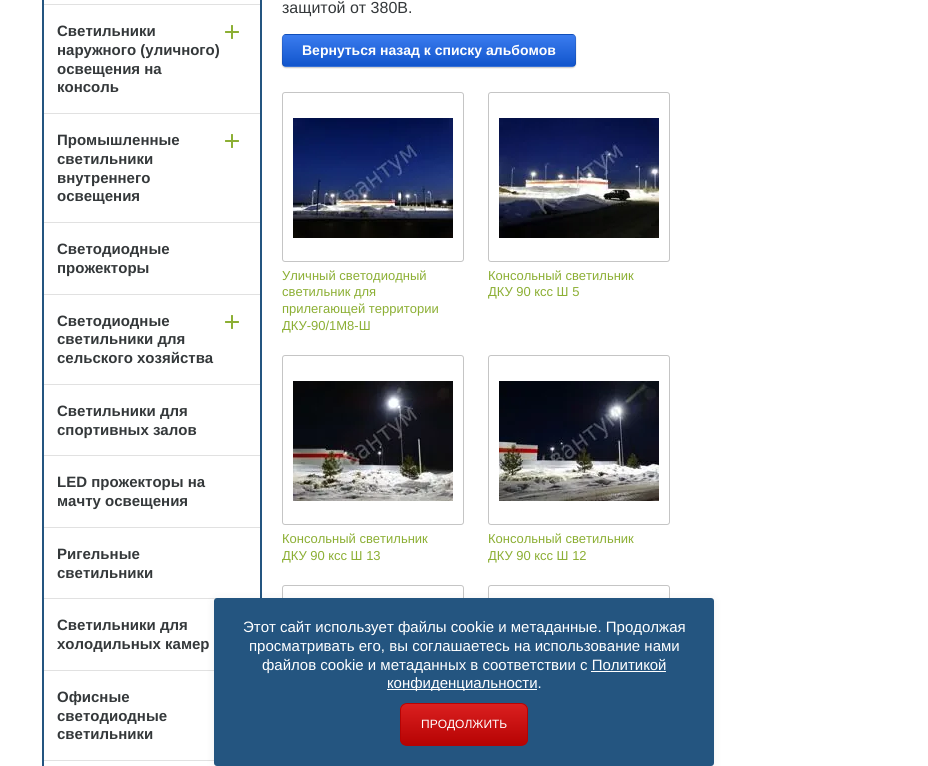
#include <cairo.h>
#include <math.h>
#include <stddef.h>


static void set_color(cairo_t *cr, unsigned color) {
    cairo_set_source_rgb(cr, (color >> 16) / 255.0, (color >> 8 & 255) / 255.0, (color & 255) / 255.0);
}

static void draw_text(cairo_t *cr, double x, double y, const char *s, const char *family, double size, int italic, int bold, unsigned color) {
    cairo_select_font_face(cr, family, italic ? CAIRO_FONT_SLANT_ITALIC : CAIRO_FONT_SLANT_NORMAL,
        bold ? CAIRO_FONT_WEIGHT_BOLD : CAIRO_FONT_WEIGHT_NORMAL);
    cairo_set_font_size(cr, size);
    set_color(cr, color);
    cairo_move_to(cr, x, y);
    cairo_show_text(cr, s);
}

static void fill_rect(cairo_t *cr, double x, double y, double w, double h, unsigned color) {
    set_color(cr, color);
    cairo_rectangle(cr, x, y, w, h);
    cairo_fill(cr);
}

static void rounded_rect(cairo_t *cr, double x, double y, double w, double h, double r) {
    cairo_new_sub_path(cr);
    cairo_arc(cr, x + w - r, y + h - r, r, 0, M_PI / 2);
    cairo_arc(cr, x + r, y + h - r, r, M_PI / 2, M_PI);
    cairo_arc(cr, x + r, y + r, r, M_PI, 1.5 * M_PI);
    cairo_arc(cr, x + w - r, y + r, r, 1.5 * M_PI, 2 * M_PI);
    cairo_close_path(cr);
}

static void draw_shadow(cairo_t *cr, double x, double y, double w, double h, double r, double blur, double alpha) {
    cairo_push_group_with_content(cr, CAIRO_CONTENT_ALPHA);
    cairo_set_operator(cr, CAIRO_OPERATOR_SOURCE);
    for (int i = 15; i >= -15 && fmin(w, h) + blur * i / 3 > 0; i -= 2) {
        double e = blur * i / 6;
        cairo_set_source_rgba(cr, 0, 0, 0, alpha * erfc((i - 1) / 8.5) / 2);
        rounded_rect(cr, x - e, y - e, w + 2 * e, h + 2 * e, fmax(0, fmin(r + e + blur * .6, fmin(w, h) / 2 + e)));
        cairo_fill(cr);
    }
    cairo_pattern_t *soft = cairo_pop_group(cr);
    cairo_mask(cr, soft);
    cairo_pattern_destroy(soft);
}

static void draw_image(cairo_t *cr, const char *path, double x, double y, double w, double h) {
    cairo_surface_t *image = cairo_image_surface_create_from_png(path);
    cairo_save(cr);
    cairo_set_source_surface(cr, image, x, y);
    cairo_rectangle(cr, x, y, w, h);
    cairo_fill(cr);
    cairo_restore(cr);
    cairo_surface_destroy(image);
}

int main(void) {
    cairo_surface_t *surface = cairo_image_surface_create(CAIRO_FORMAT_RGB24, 928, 766);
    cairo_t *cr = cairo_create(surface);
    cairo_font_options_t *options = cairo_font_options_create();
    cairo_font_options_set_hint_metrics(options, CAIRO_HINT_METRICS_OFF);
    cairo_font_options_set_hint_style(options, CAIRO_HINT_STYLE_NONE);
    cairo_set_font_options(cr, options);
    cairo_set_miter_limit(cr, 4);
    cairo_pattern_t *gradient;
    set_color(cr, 0xFFFFFF);
    cairo_paint(cr);
    cairo_rectangle(cr, 43, -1, 218, 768);
    set_color(cr, 0x245580);
    cairo_stroke(cr);
    fill_rect(cr, 44, 4, 216, 1, 0xE1E1E1);
    draw_text(cr, 57, 36, "Светильники", "Liberation Sans", 15, 0, 1, 0x34383A);
    draw_text(cr, 57, 55, "наружного (уличного)", "Liberation Sans", 15, 0, 1, 0x34383A);
    draw_text(cr, 57, 74, "освещения на", "Liberation Sans", 15, 0, 1, 0x34383A);
    draw_text(cr, 57, 92, "консоль", "Liberation Sans", 15, 0, 1, 0x34383A);
    draw_image(cr, "assets/img1.png", 225, 25, 14, 14);
    fill_rect(cr, 44, 113, 216, 1, 0xE1E1E1);
    draw_text(cr, 57, 145, "Промышленные", "Liberation Sans", 15, 0, 1, 0x34383A);
    draw_text(cr, 57, 164, "светильники", "Liberation Sans", 15, 0, 1, 0x34383A);
    draw_text(cr, 57, 183, "внутреннего", "Liberation Sans", 15, 0, 1, 0x34383A);
    draw_text(cr, 57, 201, "освещения", "Liberation Sans", 15, 0, 1, 0x34383A);
    draw_image(cr, "assets/img1.png", 225, 134, 14, 14);
    fill_rect(cr, 44, 222, 216, 1, 0xE1E1E1);
    draw_text(cr, 57, 254, "Светодиодные", "Liberation Sans", 15, 0, 1, 0x34383A);
    draw_text(cr, 57, 273, "прожекторы", "Liberation Sans", 15, 0, 1, 0x34383A);
    fill_rect(cr, 44, 294, 216, 1, 0xE1E1E1);
    draw_text(cr, 57, 326, "Светодиодные", "Liberation Sans", 15, 0, 1, 0x34383A);
    draw_text(cr, 57, 344, "светильники для", "Liberation Sans", 15, 0, 1, 0x34383A);
    draw_text(cr, 57, 363, "сельского хозяйства", "Liberation Sans", 15, 0, 1, 0x34383A);
    draw_image(cr, "assets/img1.png", 225, 315, 14, 14);
    fill_rect(cr, 44, 384, 216, 1, 0xE1E1E1);
    draw_text(cr, 57, 416, "Светильники для", "Liberation Sans", 15, 0, 1, 0x34383A);
    draw_text(cr, 57, 435, "спортивных залов", "Liberation Sans", 15, 0, 1, 0x34383A);
    fill_rect(cr, 44, 455, 216, 1, 0xE1E1E1);
    draw_text(cr, 57, 487, "LED прожекторы на", "Liberation Sans", 15, 0, 1, 0x34383A);
    draw_text(cr, 57, 506, "мачту освещения", "Liberation Sans", 15, 0, 1, 0x34383A);
    fill_rect(cr, 44, 527, 216, 1, 0xE1E1E1);
    draw_text(cr, 57, 559, "Ригельные", "Liberation Sans", 15, 0, 1, 0x34383A);
    draw_text(cr, 57, 578, "светильники", "Liberation Sans", 15, 0, 1, 0x34383A);
    fill_rect(cr, 44, 598, 173, 1, 0xE1E1E1);
    draw_text(cr, 57, 630, "Светильники для", "Liberation Sans", 15, 0, 1, 0x34383A);
    draw_text(cr, 57, 649, "холодильных камер", "Liberation Sans", 15, 0, 1, 0x34383A);
    fill_rect(cr, 44, 670, 170, 1, 0xE1E1E1);
    draw_text(cr, 57, 702, "Офисные", "Liberation Sans", 15, 0, 1, 0x34383A);
    draw_text(cr, 57, 721, "светодиодные", "Liberation Sans", 15, 0, 1, 0x34383A);
    draw_text(cr, 57, 739, "светильники", "Liberation Sans", 15, 0, 1, 0x34383A);
    fill_rect(cr, 44, 760, 170, 1, 0xE1E1E1);
    draw_text(cr, 282, 13, "защитой от 380В.", "Liberation Sans", 16, 0, 0, 0x34383A);
    set_color(cr, 0x000000);
    draw_shadow(cr, 282, 35, 294, 33, 4, 0.5, 0.2);
    cairo_save(cr);
    rounded_rect(cr, 282, 34, 294, 33, 4);
    cairo_clip(cr);
    gradient = cairo_pattern_create_linear(429, 4, 429, 35);
    cairo_pattern_add_color_stop_rgba(gradient, 0, 0.231, 0.486, 0.937, 1);
    cairo_pattern_add_color_stop_rgba(gradient, 1, 0.067, 0.333, 0.8, 1);
    cairo_set_source(cr, gradient);
    cairo_pattern_destroy(gradient);
    cairo_rectangle(cr, 282, 34, 294, 1);
    cairo_fill(cr);
    gradient = cairo_pattern_create_linear(429, 35, 429, 66);
    cairo_pattern_add_color_stop_rgba(gradient, 0, 0.231, 0.486, 0.937, 1);
    cairo_pattern_add_color_stop_rgba(gradient, 1, 0.067, 0.333, 0.8, 1);
    cairo_set_source(cr, gradient);
    cairo_pattern_destroy(gradient);
    cairo_rectangle(cr, 282, 35, 294, 31);
    cairo_fill(cr);
    gradient = cairo_pattern_create_linear(429, 66, 429, 97);
    cairo_pattern_add_color_stop_rgba(gradient, 0, 0.231, 0.486, 0.937, 1);
    cairo_pattern_add_color_stop_rgba(gradient, 1, 0.067, 0.333, 0.8, 1);
    cairo_set_source(cr, gradient);
    cairo_pattern_destroy(gradient);
    cairo_rectangle(cr, 282, 66, 294, 1);
    cairo_fill(cr);
    cairo_restore(cr);
    rounded_rect(cr, 282.5, 34.5, 293, 32, 3.5);
    cairo_set_source_rgba(cr, 0, 0, 0, 0.1);
    cairo_set_line_width(cr, 1);
    cairo_stroke(cr);
    draw_text(cr, 302, 55, "Вернуться назад к списку альбомов", "Liberation Sans", 14, 0, 1, 0xFFFFFF);
    rounded_rect(cr, 282.5, 92.5, 181, 169, 2.5);
    set_color(cr, 0xC5C5C5);
    cairo_stroke(cr);
    draw_image(cr, "assets/img2.png", 293, 118, 160, 120);
    draw_text(cr, 282, 280, "Уличный светодиодный", "Liberation Sans", 13, 0, 0, 0x8CAF34);
    draw_text(cr, 282, 296, "светильник для", "Liberation Sans", 13, 0, 0, 0x8CAF34);
    draw_text(cr, 282, 313, "прилегающей территории", "Liberation Sans", 13, 0, 0, 0x8CAF34);
    draw_text(cr, 282, 330, "ДКУ-90/1М8-Ш", "Liberation Sans", 13, 0, 0, 0x8CAF34);
    rounded_rect(cr, 488.5, 92.5, 181, 169, 2.5);
    set_color(cr, 0xC5C5C5);
    cairo_stroke(cr);
    draw_image(cr, "assets/img3.png", 499, 118, 160, 120);
    draw_text(cr, 488, 280, "Консольный светильник", "Liberation Sans", 13, 0, 0, 0x8CAF34);
    draw_text(cr, 488, 296, "ДКУ 90 ксс Ш 5", "Liberation Sans", 13, 0, 0, 0x8CAF34);
    rounded_rect(cr, 282.5, 355.5, 181, 169, 2.5);
    set_color(cr, 0xC5C5C5);
    cairo_stroke(cr);
    draw_image(cr, "assets/img4.png", 293, 381, 160, 120);
    draw_text(cr, 282, 543, "Консольный светильник", "Liberation Sans", 13, 0, 0, 0x8CAF34);
    draw_text(cr, 282, 560, "ДКУ 90 ксс Ш 13", "Liberation Sans", 13, 0, 0, 0x8CAF34);
    rounded_rect(cr, 488.5, 355.5, 181, 169, 2.5);
    set_color(cr, 0xC5C5C5);
    cairo_stroke(cr);
    draw_image(cr, "assets/img5.png", 499, 381, 160, 120);
    draw_text(cr, 488, 543, "Консольный светильник", "Liberation Sans", 13, 0, 0, 0x8CAF34);
    draw_text(cr, 488, 560, "ДКУ 90 ксс Ш 12", "Liberation Sans", 13, 0, 0, 0x8CAF34);
    rounded_rect(cr, 282.5, 585.5, 181, 169, 2.5);
    set_color(cr, 0xC5C5C5);
    cairo_stroke(cr);
    rounded_rect(cr, 488.5, 585.5, 181, 169, 2.5);
    cairo_stroke(cr);
    set_color(cr, 0x000000);
    draw_shadow(cr, 214, 599, 500, 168, 3, 5, 0.06);
    set_color(cr, 0x245580);
    rounded_rect(cr, 214, 598, 500, 168, 3);
    cairo_fill(cr);
    draw_text(cr, 243, 632, "Этот сайт использует файлы cookie и метаданные. Продолжая", "Liberation Sans", 15, 0, 0, 0xFFFFFF);
    draw_text(cr, 249, 651, "просматривать его, вы соглашаетесь на использование нами", "Liberation Sans", 15, 0, 0, 0xFFFFFF);
    draw_text(cr, 262, 670, "файлов cookie и метаданных в соответствии с Политикой", "Liberation Sans", 15, 0, 0, 0xFFFFFF);
    fill_rect(cr, 387, 689, 150, 1, 0xFFFFFF);
    draw_text(cr, 387, 688, "конфиденциальности.", "Liberation Sans", 15, 0, 0, 0xFFFFFF);
    fill_rect(cr, 591, 671, 75, 1, 0xFFFFFF);
    cairo_save(cr);
    rounded_rect(cr, 400, 703, 128, 43, 7);
    cairo_clip(cr);
    gradient = cairo_pattern_create_linear(464, 704, 464, 745);
    cairo_pattern_add_color_stop_rgba(gradient, 0, 0.855, 0.122, 0.122, 1);
    cairo_pattern_add_color_stop_rgba(gradient, 1, 0.714, 0.012, 0.012, 1);
    cairo_set_source(cr, gradient);
    cairo_pattern_destroy(gradient);
    cairo_rectangle(cr, 400, 704, 128, 41);
    cairo_fill(cr);
    cairo_restore(cr);
    rounded_rect(cr, 400.5, 703.5, 127, 42, 6.5);
    set_color(cr, 0xB60303);
    cairo_stroke(cr);
    draw_text(cr, 421, 728, "ПРОДОЛЖИТЬ", "Liberation Sans", 12, 0, 0, 0xFFFFFF);
    cairo_surface_write_to_png(surface, "output.png");
    cairo_font_options_destroy(options);
    cairo_destroy(cr);
    cairo_surface_destroy(surface);
    return 0;
}
